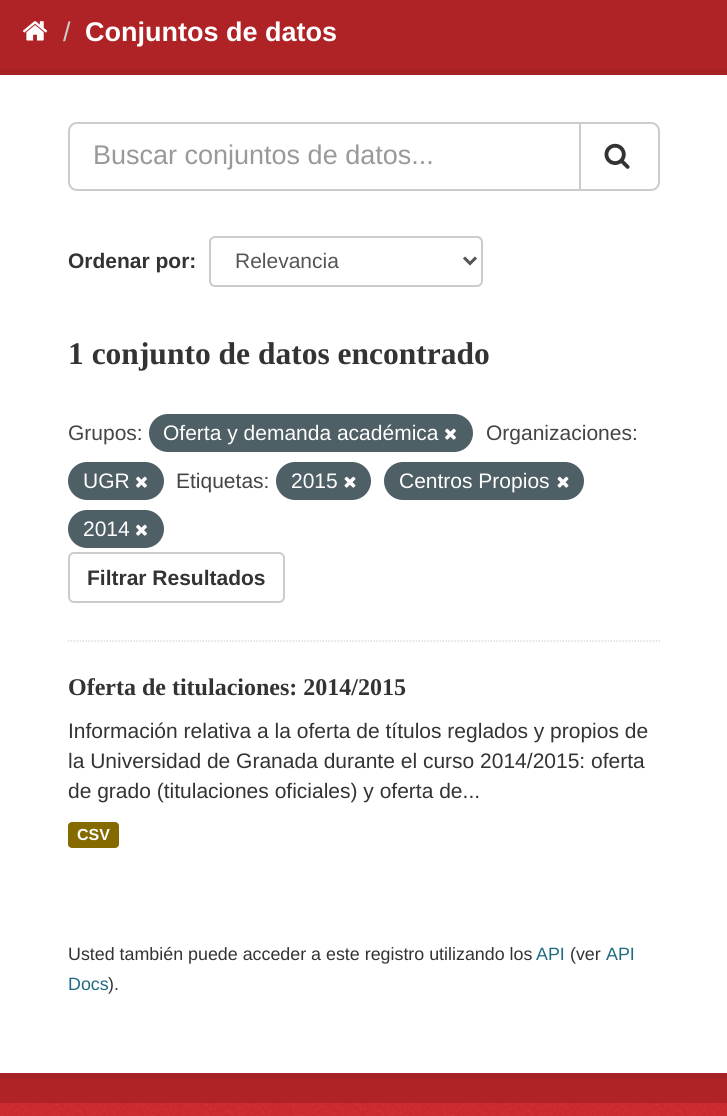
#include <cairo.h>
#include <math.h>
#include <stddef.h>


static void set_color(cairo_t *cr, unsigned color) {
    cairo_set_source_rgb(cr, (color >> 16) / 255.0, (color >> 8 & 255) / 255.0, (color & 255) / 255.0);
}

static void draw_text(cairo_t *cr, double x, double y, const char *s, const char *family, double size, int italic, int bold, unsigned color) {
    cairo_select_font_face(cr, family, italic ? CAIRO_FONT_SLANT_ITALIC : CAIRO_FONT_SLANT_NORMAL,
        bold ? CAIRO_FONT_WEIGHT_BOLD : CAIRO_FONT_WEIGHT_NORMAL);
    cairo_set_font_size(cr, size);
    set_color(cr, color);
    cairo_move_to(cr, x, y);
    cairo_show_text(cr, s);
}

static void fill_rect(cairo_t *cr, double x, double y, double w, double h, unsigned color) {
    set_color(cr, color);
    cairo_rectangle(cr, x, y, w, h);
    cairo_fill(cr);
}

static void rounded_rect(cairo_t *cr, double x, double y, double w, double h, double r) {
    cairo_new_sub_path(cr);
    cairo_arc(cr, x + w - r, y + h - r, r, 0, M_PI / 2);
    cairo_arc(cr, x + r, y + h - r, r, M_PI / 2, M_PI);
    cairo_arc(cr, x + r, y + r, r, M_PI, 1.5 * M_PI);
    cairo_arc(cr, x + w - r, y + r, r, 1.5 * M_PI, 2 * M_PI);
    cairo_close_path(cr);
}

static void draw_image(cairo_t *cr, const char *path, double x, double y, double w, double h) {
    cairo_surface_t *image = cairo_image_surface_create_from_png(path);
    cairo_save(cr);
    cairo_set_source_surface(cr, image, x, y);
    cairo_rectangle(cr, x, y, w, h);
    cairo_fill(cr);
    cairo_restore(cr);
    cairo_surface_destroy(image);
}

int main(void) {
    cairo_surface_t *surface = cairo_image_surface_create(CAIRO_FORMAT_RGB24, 727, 1116);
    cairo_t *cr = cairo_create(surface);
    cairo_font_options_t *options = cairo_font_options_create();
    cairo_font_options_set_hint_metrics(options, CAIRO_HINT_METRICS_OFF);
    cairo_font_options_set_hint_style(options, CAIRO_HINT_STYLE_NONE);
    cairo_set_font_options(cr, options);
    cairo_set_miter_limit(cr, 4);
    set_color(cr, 0xD12B2E);
    cairo_paint(cr);
    fill_rect(cr, 0, 0, 727, 1103, 0xAF2326);
    draw_image(cr, "assets/img1.png", 23, 21, 25, 20);
    draw_text(cr, 63, 41, "/", "Liberation Sans", 27, 0, 0, 0xCCCCCC);
    draw_text(cr, 85, 41, "Conjuntos de datos", "Liberation Sans", 27, 0, 1, 0xFFFFFF);
    cairo_rectangle(cr, -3, 72, 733, 1004);
    set_color(cr, 0xA62124);
    cairo_set_line_width(cr, 6);
    cairo_stroke(cr);
    fill_rect(cr, 0, 75, 727, 998, 0xFFFFFF);
    cairo_new_path(cr);
    cairo_move_to(cr, 67.5, 641);
    cairo_line_to(cr, 660, 641);
    set_color(cr, 0xDDDDDD);
    cairo_set_line_width(cr, 1.5);
    cairo_set_dash(cr, (double[]){1.5, 1.5}, 2, 0);
    cairo_stroke(cr);
    cairo_new_path(cr);
    cairo_move_to(cr, 77, 123);
    cairo_line_to(cr, 580, 123);
    cairo_line_to(cr, 580, 190);
    cairo_line_to(cr, 77, 190);
    cairo_curve_to(cr, 72.5, 190, 69, 186.5, 69, 182);
    cairo_line_to(cr, 69, 131);
    cairo_curve_to(cr, 69, 126.5, 72.5, 123, 77, 123);
    cairo_close_path(cr);
    set_color(cr, 0xCCCCCC);
    cairo_set_line_width(cr, 2);
    cairo_set_dash(cr, NULL, 0, 0);
    cairo_stroke(cr);
    draw_text(cr, 93, 164, "Buscar conjuntos de datos...", "Liberation Sans", 27, 0, 0, 0x999999);
    set_color(cr, 0xFFFFFF);
    cairo_new_path(cr);
    cairo_move_to(cr, 580, 123);
    cairo_line_to(cr, 651, 123);
    cairo_curve_to(cr, 655.5, 123, 659, 126.5, 659, 131);
    cairo_line_to(cr, 659, 182);
    cairo_curve_to(cr, 659, 186.5, 655.5, 190, 651, 190);
    cairo_line_to(cr, 580, 190);
    cairo_close_path(cr);
    cairo_fill_preserve(cr);
    set_color(cr, 0xCCCCCC);
    cairo_stroke(cr);
    draw_image(cr, "assets/img2.png", 604, 143, 26, 26);
    draw_text(cr, 68, 268, "Ordenar por:", "Liberation Sans", 21, 0, 1, 0x333333);
    set_color(cr, 0xECECEC);
    cairo_new_path(cr);
    cairo_move_to(cr, 214, 238);
    cairo_line_to(cr, 477, 238);
    cairo_curve_to(cr, 479, 238, 482, 241, 482, 243);
    cairo_curve_to(cr, 482, 240, 480, 237, 477, 237);
    cairo_line_to(cr, 215, 237);
    cairo_curve_to(cr, 212, 237, 210, 240, 210, 243);
    cairo_curve_to(cr, 210, 241, 212, 238, 214, 238);
    cairo_close_path(cr);
    cairo_fill(cr);
    rounded_rect(cr, 210, 237, 272, 49, 5);
    set_color(cr, 0xCCCCCC);
    cairo_stroke(cr);
    cairo_new_path(cr);
    cairo_move_to(cr, 464, 257.5);
    cairo_line_to(cr, 470, 263.5);
    cairo_line_to(cr, 476, 257.5);
    set_color(cr, 0x555555);
    cairo_set_line_width(cr, 3);
    cairo_stroke(cr);
    draw_text(cr, 235, 268, "Relevancia", "Liberation Sans", 21, 0, 0, 0x555555);
    draw_text(cr, 68, 364, "1 conjunto de datos encontrado", "Liberation Serif", 31.5, 0, 1, 0x333333);
    draw_text(cr, 68, 440, "Grupos:", "Liberation Sans", 21, 0, 0, 0x444444);
    set_color(cr, 0x4E5F65);
    rounded_rect(cr, 149, 414, 324, 38, 19);
    cairo_fill(cr);
    draw_text(cr, 163, 440, "Oferta y demanda académica", "Liberation Sans", 21, 0, 0, 0xFFFFFF);
    draw_image(cr, "assets/img3.png", 445, 428, 11, 12);
    draw_text(cr, 486, 440, "Organizaciones:", "Liberation Sans", 21, 0, 0, 0x444444);
    set_color(cr, 0x4E5F65);
    rounded_rect(cr, 68, 462, 96, 38, 19);
    cairo_fill(cr);
    draw_text(cr, 83, 488, "UGR", "Liberation Sans", 21, 0, 0, 0xFFFFFF);
    draw_image(cr, "assets/img3.png", 136, 476, 11, 12);
    draw_text(cr, 176, 488, "Etiquetas:", "Liberation Sans", 21, 0, 0, 0x444444);
    set_color(cr, 0x4E5F65);
    rounded_rect(cr, 276, 462, 95, 38, 19);
    cairo_fill(cr);
    draw_text(cr, 291, 488, "2015", "Liberation Sans", 21, 0, 0, 0xFFFFFF);
    draw_image(cr, "assets/img4.png", 344, 476, 12, 12);
    set_color(cr, 0x4E5F65);
    rounded_rect(cr, 384, 462, 200, 38, 19);
    cairo_fill(cr);
    draw_text(cr, 399, 488, "Centros Propios", "Liberation Sans", 21, 0, 0, 0xFFFFFF);
    draw_image(cr, "assets/img4.png", 557, 476, 12, 12);
    set_color(cr, 0x4E5F65);
    rounded_rect(cr, 68, 510, 96, 38, 19);
    cairo_fill(cr);
    draw_text(cr, 83, 536, "2014", "Liberation Sans", 21, 0, 0, 0xFFFFFF);
    draw_image(cr, "assets/img3.png", 136, 524, 11, 12);
    rounded_rect(cr, 69, 553, 215, 49, 5);
    set_color(cr, 0xCCCCCC);
    cairo_set_line_width(cr, 2);
    cairo_stroke(cr);
    draw_text(cr, 87, 585, "Filtrar Resultados", "Liberation Sans", 21, 0, 1, 0x333333);
    draw_text(cr, 68, 695, "Oferta de titulaciones: 2014/2015", "Liberation Serif", 24, 0, 1, 0x333333);
    draw_text(cr, 68, 738, "Información relativa a la oferta de títulos reglados y propios de", "Liberation Sans", 21, 0, 0, 0x333333);
    draw_text(cr, 68, 768, "la Universidad de Granada durante el curso 2014/2015: oferta", "Liberation Sans", 21, 0, 0, 0x333333);
    draw_text(cr, 68, 798, "de grado (titulaciones oficiales) y oferta de...", "Liberation Sans", 21, 0, 0, 0x333333);
    set_color(cr, 0x856A00);
    rounded_rect(cr, 68, 822, 51, 26, 4);
    cairo_fill(cr);
    draw_text(cr, 77, 840, "CSV", "Liberation Sans", 16, 0, 1, 0xFFFFFF);
    draw_text(cr, 68, 960, "Usted también puede acceder a este registro utilizando los", "Liberation Sans", 17.85, 0, 0, 0x333333);
    draw_text(cr, 536, 960, "API", "Liberation Sans", 17.85, 0, 0, 0x206B82);
    draw_text(cr, 570, 960, "(ver", "Liberation Sans", 17.85, 0, 0, 0x333333);
    draw_text(cr, 606, 960, "API", "Liberation Sans", 17.85, 0, 0, 0x206B82);
    draw_text(cr, 68, 990, "Docs", "Liberation Sans", 17.85, 0, 0, 0x206B82);
    draw_text(cr, 108, 990, ").", "Liberation Sans", 17.85, 0, 0, 0x333333);
    draw_image(cr, "assets/img5.png", 0, 1103, 727, 13);
    cairo_surface_write_to_png(surface, "output.png");
    cairo_font_options_destroy(options);
    cairo_destroy(cr);
    cairo_surface_destroy(surface);
    return 0;
}
